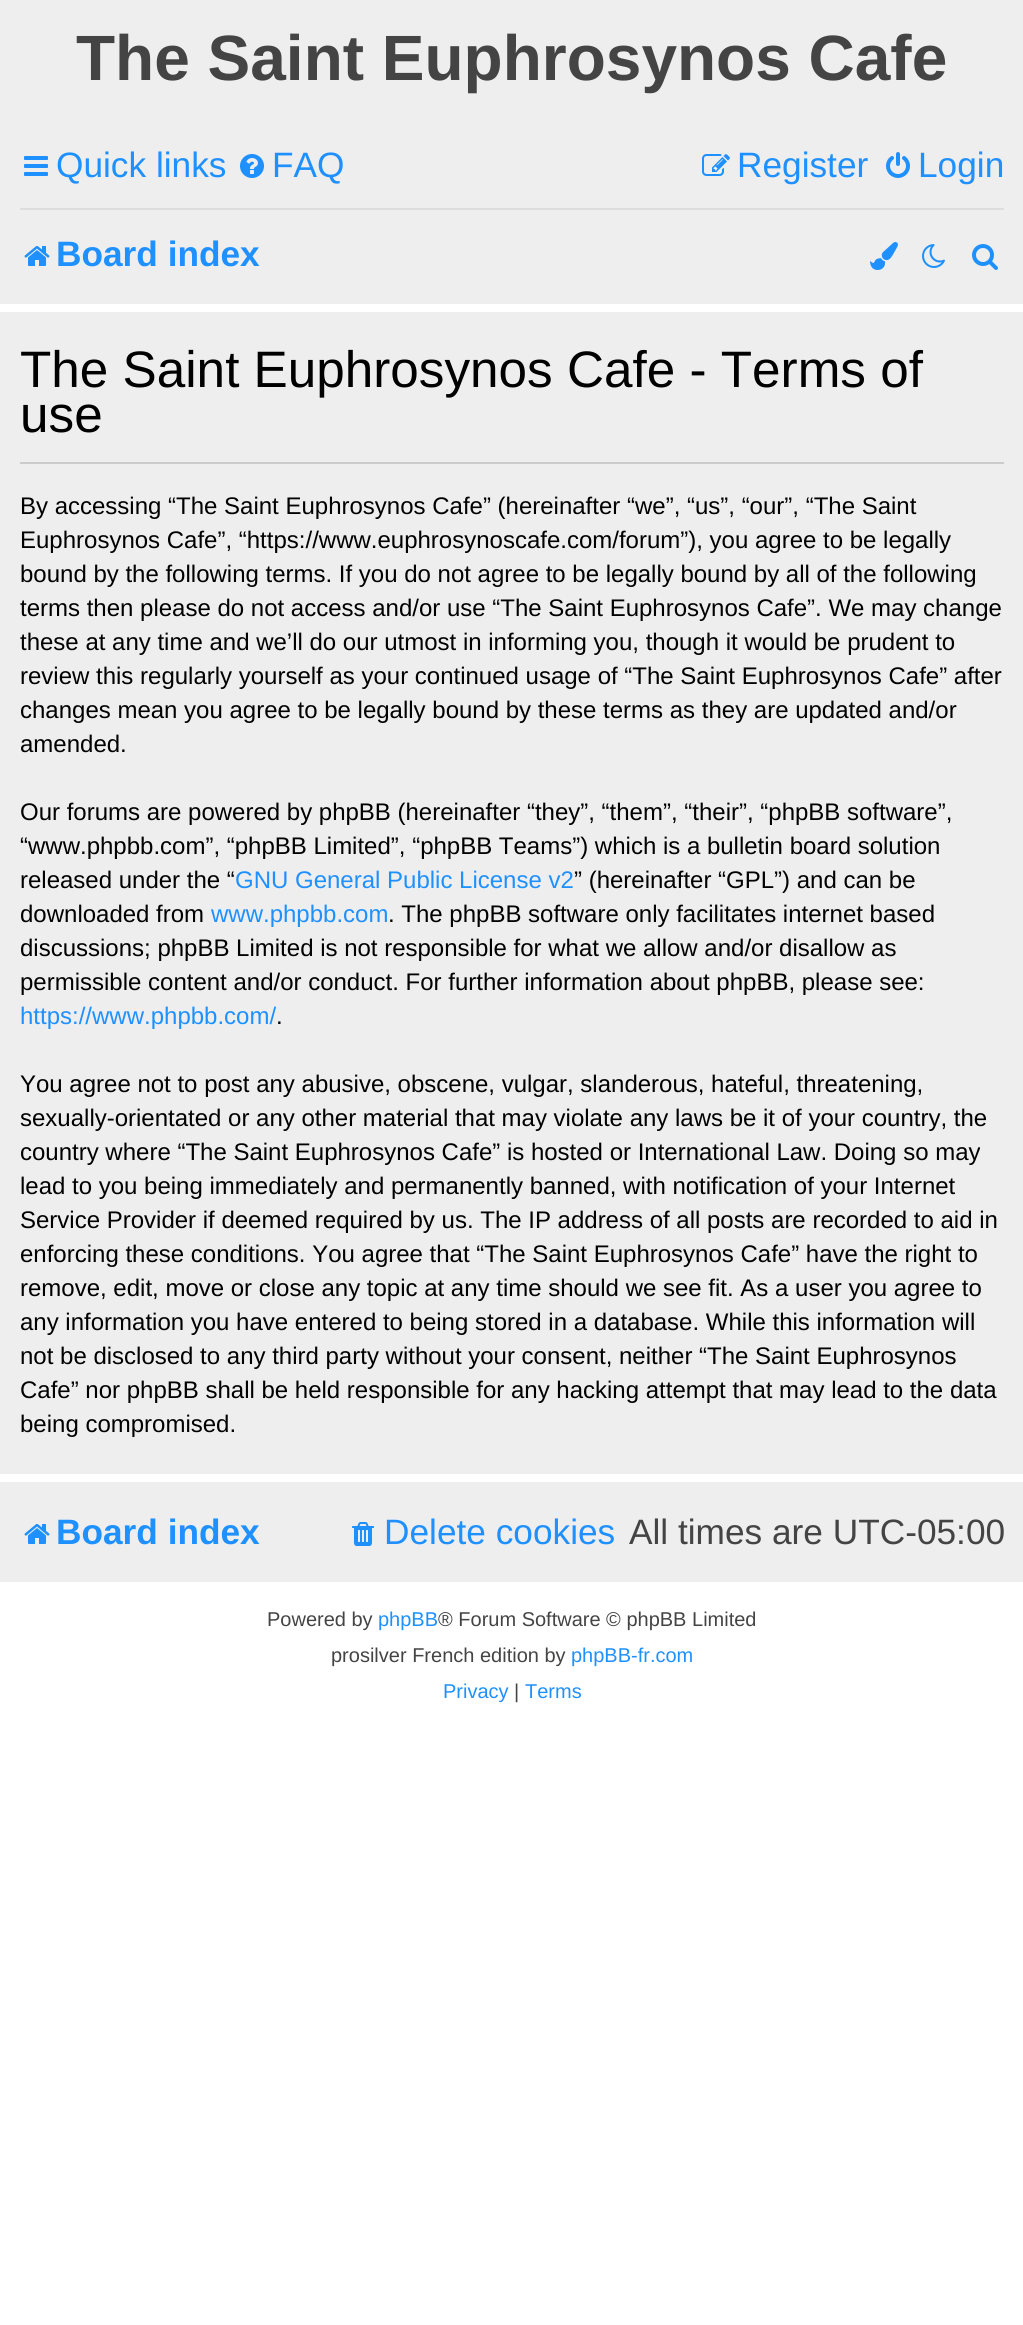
#include <cairo.h>
#include <math.h>
#include <stddef.h>


static void set_color(cairo_t *cr, unsigned color) {
    cairo_set_source_rgb(cr, (color >> 16) / 255.0, (color >> 8 & 255) / 255.0, (color & 255) / 255.0);
}

static void draw_text(cairo_t *cr, double x, double y, const char *s, const char *family, double size, int italic, int bold, unsigned color) {
    cairo_select_font_face(cr, family, italic ? CAIRO_FONT_SLANT_ITALIC : CAIRO_FONT_SLANT_NORMAL,
        bold ? CAIRO_FONT_WEIGHT_BOLD : CAIRO_FONT_WEIGHT_NORMAL);
    cairo_set_font_size(cr, size);
    set_color(cr, color);
    cairo_move_to(cr, x, y);
    cairo_show_text(cr, s);
}

static void fill_rect(cairo_t *cr, double x, double y, double w, double h, unsigned color) {
    set_color(cr, color);
    cairo_rectangle(cr, x, y, w, h);
    cairo_fill(cr);
}

static void draw_image(cairo_t *cr, const char *path, double x, double y, double w, double h) {
    cairo_surface_t *image = cairo_image_surface_create_from_png(path);
    cairo_save(cr);
    cairo_set_source_surface(cr, image, x, y);
    cairo_rectangle(cr, x, y, w, h);
    cairo_fill(cr);
    cairo_restore(cr);
    cairo_surface_destroy(image);
}

int main(void) {
    cairo_surface_t *surface = cairo_image_surface_create(CAIRO_FORMAT_RGB24, 1023, 2325);
    cairo_t *cr = cairo_create(surface);
    cairo_font_options_t *options = cairo_font_options_create();
    cairo_font_options_set_hint_metrics(options, CAIRO_HINT_METRICS_OFF);
    cairo_font_options_set_hint_style(options, CAIRO_HINT_STYLE_NONE);
    cairo_set_font_options(cr, options);
    cairo_set_miter_limit(cr, 4);
    set_color(cr, 0xFFFFFF);
    cairo_paint(cr);
    fill_rect(cr, 0, 0, 1023, 304, 0xEEEEEE);
    draw_text(cr, 76, 80, "The Saint Euphrosynos Cafe", "Liberation Sans", 64, 0, 1, 0x444444);
    draw_image(cr, "assets/img1.png", 24, 156, 24, 20);
    draw_text(cr, 56, 177, "Quick links", "Liberation Sans", 35.25, 0, 0, 0x1E90FF);
    draw_image(cr, "assets/img2.png", 240, 154, 24, 24);
    draw_text(cr, 272, 177, "FAQ", "Liberation Sans", 35.25, 0, 0, 0x1E90FF);
    draw_image(cr, "assets/img3.png", 702, 154, 28, 22);
    draw_text(cr, 737, 177, "Register", "Liberation Sans", 35.25, 0, 0, 0x1E90FF);
    draw_image(cr, "assets/img4.png", 886, 152, 24, 26);
    draw_text(cr, 918, 177, "Login", "Liberation Sans", 35.25, 0, 0, 0x1E90FF);
    fill_rect(cr, 20, 208, 984, 2, 0xDDDDDD);
    draw_image(cr, "assets/img5.png", 24, 246, 26, 20);
    draw_text(cr, 56, 266, "Board index", "Liberation Sans", 35.25, 0, 1, 0x1E90FF);
    draw_image(cr, "assets/img6.png", 870, 242, 28, 28);
    draw_image(cr, "assets/img7.png", 922, 244, 23, 24);
    draw_image(cr, "assets/img8.png", 972, 244, 26, 26);
    fill_rect(cr, 0, 312, 1023, 1162, 0xEEEEEE);
    fill_rect(cr, 20, 462, 984, 2, 0xCCCCCC);
    draw_text(cr, 20, 387, "The Saint Euphrosynos Cafe - Terms of", "Liberation Sans", 51.25, 0, 0, 0x000000);
    draw_text(cr, 20, 432, "use", "Liberation Sans", 51.25, 0, 0, 0x000000);
    draw_text(cr, 20, 514, "By accessing “The Saint Euphrosynos Cafe” (hereinafter “we”, “us”, “our”, “The Saint", "Liberation Sans", 24, 0, 0, 0x000000);
    draw_text(cr, 20, 548, "Euphrosynos Cafe”, “https://www.euphrosynoscafe.com/forum”), you agree to be legally", "Liberation Sans", 24, 0, 0, 0x000000);
    draw_text(cr, 20, 582, "bound by the following terms. If you do not agree to be legally bound by all of the following", "Liberation Sans", 24, 0, 0, 0x000000);
    draw_text(cr, 20, 616, "terms then please do not access and/or use “The Saint Euphrosynos Cafe”. We may change", "Liberation Sans", 24, 0, 0, 0x000000);
    draw_text(cr, 20, 650, "these at any time and we’ll do our utmost in informing you, though it would be prudent to", "Liberation Sans", 24, 0, 0, 0x000000);
    draw_text(cr, 20, 684, "review this regularly yourself as your continued usage of “The Saint Euphrosynos Cafe” after", "Liberation Sans", 24, 0, 0, 0x000000);
    draw_text(cr, 20, 718, "changes mean you agree to be legally bound by these terms as they are updated and/or", "Liberation Sans", 24, 0, 0, 0x000000);
    draw_text(cr, 20, 752, "amended.", "Liberation Sans", 24, 0, 0, 0x000000);
    draw_text(cr, 20, 820, "Our forums are powered by phpBB (hereinafter “they”, “them”, “their”, “phpBB software”,", "Liberation Sans", 24, 0, 0, 0x000000);
    draw_text(cr, 20, 854, "“www.phpbb.com”, “phpBB Limited”, “phpBB Teams”) which is a bulletin board solution", "Liberation Sans", 24, 0, 0, 0x000000);
    draw_text(cr, 20, 888, "released under the “", "Liberation Sans", 24, 0, 0, 0x000000);
    draw_text(cr, 235, 888, "GNU General Public License v2", "Liberation Sans", 24, 0, 0, 0x1E90FF);
    draw_text(cr, 574, 888, "” (hereinafter “GPL”) and can be", "Liberation Sans", 24, 0, 0, 0x000000);
    draw_text(cr, 20, 922, "downloaded from", "Liberation Sans", 24, 0, 0, 0x000000);
    draw_text(cr, 211, 922, "www.phpbb.com", "Liberation Sans", 24, 0, 0, 0x1E90FF);
    draw_text(cr, 388, 922, ". The phpBB software only facilitates internet based", "Liberation Sans", 24, 0, 0, 0x000000);
    draw_text(cr, 20, 956, "discussions; phpBB Limited is not responsible for what we allow and/or disallow as", "Liberation Sans", 24, 0, 0, 0x000000);
    draw_text(cr, 20, 990, "permissible content and/or conduct. For further information about phpBB, please see:", "Liberation Sans", 24, 0, 0, 0x000000);
    draw_text(cr, 20, 1024, "https://www.phpbb.com/", "Liberation Sans", 24, 0, 0, 0x1E90FF);
    draw_text(cr, 276, 1024, ".", "Liberation Sans", 24, 0, 0, 0x000000);
    draw_text(cr, 20, 1092, "You agree not to post any abusive, obscene, vulgar, slanderous, hateful, threatening,", "Liberation Sans", 24, 0, 0, 0x000000);
    draw_text(cr, 20, 1126, "sexually-orientated or any other material that may violate any laws be it of your country, the", "Liberation Sans", 24, 0, 0, 0x000000);
    draw_text(cr, 20, 1160, "country where “The Saint Euphrosynos Cafe” is hosted or International Law. Doing so may", "Liberation Sans", 24, 0, 0, 0x000000);
    draw_text(cr, 20, 1194, "lead to you being immediately and permanently banned, with notification of your Internet", "Liberation Sans", 24, 0, 0, 0x000000);
    draw_text(cr, 20, 1228, "Service Provider if deemed required by us. The IP address of all posts are recorded to aid in", "Liberation Sans", 24, 0, 0, 0x000000);
    draw_text(cr, 20, 1262, "enforcing these conditions. You agree that “The Saint Euphrosynos Cafe” have the right to", "Liberation Sans", 24, 0, 0, 0x000000);
    draw_text(cr, 20, 1296, "remove, edit, move or close any topic at any time should we see fit. As a user you agree to", "Liberation Sans", 24, 0, 0, 0x000000);
    draw_text(cr, 20, 1330, "any information you have entered to being stored in a database. While this information will", "Liberation Sans", 24, 0, 0, 0x000000);
    draw_text(cr, 20, 1364, "not be disclosed to any third party without your consent, neither “The Saint Euphrosynos", "Liberation Sans", 24, 0, 0, 0x000000);
    draw_text(cr, 20, 1398, "Cafe” nor phpBB shall be held responsible for any hacking attempt that may lead to the data", "Liberation Sans", 24, 0, 0, 0x000000);
    draw_text(cr, 20, 1432, "being compromised.", "Liberation Sans", 24, 0, 0, 0x000000);
    fill_rect(cr, 0, 1482, 1023, 100, 0xEEEEEE);
    draw_image(cr, "assets/img5.png", 24, 1524, 26, 20);
    draw_text(cr, 56, 1544, "Board index", "Liberation Sans", 35.25, 0, 1, 0x1E90FF);
    draw_image(cr, "assets/img9.png", 352, 1522, 22, 24);
    draw_text(cr, 384, 1544, "Delete cookies", "Liberation Sans", 35.25, 0, 0, 0x1E90FF);
    draw_text(cr, 629, 1544, "All times are UTC-05:00", "Liberation Sans", 35.25, 0, 0, 0x444444);
    draw_text(cr, 267, 1626, "Powered by", "Liberation Sans", 20, 0, 0, 0x444444);
    draw_text(cr, 378, 1626, "phpBB", "Liberation Sans", 20, 0, 0, 0x1E90FF);
    draw_text(cr, 438, 1626, "® Forum Software © phpBB Limited", "Liberation Sans", 20, 0, 0, 0x444444);
    draw_text(cr, 331, 1662, "prosilver French edition by", "Liberation Sans", 20, 0, 0, 0x444444);
    draw_text(cr, 571, 1662, "phpBB-fr.com", "Liberation Sans", 20, 0, 0, 0x1E90FF);
    draw_text(cr, 443, 1698, "Privacy", "Liberation Sans", 20, 0, 0, 0x1E90FF);
    draw_text(cr, 514, 1698, "|", "Liberation Sans", 20, 0, 0, 0x444444);
    draw_text(cr, 525, 1698, "Terms", "Liberation Sans", 20, 0, 0, 0x1E90FF);
    cairo_surface_write_to_png(surface, "output.png");
    cairo_font_options_destroy(options);
    cairo_destroy(cr);
    cairo_surface_destroy(surface);
    return 0;
}
